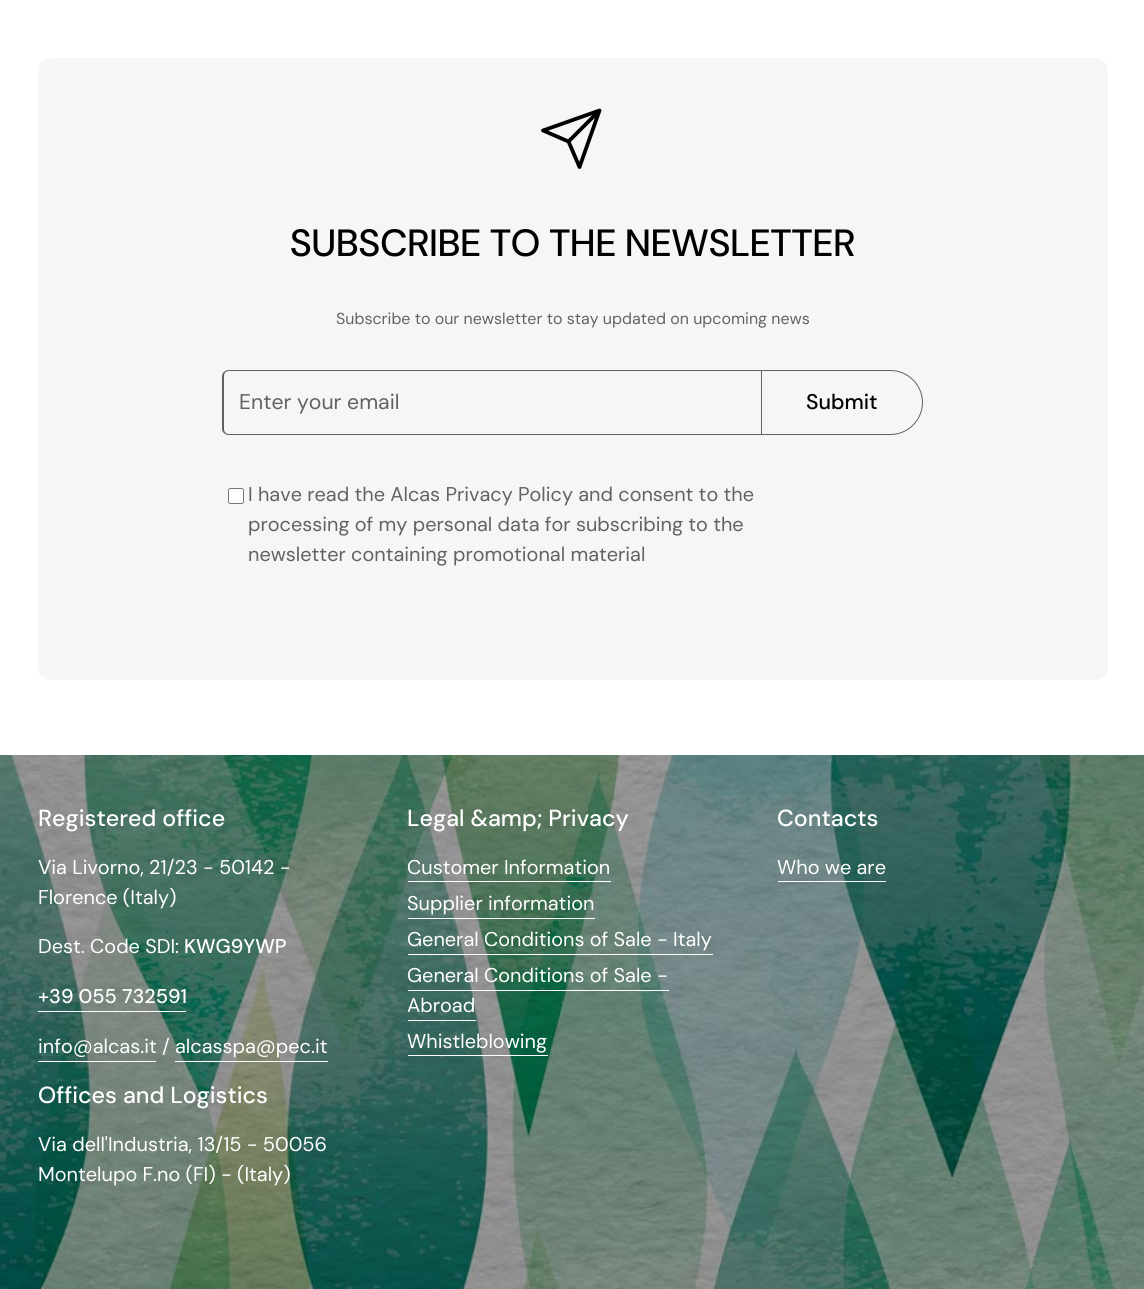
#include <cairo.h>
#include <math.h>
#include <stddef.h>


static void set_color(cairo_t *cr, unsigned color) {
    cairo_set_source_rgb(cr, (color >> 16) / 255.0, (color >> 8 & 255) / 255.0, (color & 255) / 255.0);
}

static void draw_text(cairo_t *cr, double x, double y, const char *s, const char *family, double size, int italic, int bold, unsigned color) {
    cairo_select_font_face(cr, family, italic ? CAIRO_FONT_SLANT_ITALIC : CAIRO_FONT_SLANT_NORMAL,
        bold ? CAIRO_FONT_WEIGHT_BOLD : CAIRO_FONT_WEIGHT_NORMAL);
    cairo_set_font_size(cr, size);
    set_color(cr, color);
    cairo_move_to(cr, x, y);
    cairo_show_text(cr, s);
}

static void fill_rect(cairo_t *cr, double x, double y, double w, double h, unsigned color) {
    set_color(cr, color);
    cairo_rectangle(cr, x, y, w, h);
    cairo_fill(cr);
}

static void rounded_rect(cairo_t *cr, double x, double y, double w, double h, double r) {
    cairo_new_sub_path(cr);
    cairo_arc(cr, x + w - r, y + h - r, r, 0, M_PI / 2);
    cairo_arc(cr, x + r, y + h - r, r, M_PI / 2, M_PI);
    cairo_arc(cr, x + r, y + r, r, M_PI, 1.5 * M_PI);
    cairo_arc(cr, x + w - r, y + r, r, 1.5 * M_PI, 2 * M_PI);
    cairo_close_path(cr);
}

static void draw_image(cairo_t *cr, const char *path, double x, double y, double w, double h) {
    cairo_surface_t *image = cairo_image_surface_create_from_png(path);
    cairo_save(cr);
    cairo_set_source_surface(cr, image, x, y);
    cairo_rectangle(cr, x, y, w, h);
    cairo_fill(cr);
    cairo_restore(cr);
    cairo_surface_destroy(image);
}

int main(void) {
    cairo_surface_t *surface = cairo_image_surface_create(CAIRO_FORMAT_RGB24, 1144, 1289);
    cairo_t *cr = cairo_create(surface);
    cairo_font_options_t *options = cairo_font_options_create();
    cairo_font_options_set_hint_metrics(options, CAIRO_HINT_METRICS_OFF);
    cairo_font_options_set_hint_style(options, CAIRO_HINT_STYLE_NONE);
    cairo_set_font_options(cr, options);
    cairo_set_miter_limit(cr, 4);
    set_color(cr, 0xFFFFFF);
    cairo_paint(cr);
    set_color(cr, 0xF6F6F8);
    rounded_rect(cr, 38, 58, 1070, 622, 13);
    cairo_fill(cr);
    cairo_new_path(cr);
    cairo_move_to(cr, 599.5, 110.5);
    cairo_line_to(cr, 568.5, 141.5);
    cairo_move_to(cr, 599.5, 110.5);
    cairo_line_to(cr, 579.5, 167);
    cairo_line_to(cr, 568.5, 141.5);
    cairo_line_to(cr, 543, 130.5);
    cairo_close_path(cr);
    set_color(cr, 0x000000);
    cairo_set_line_width(cr, 3.8);
    cairo_set_line_cap(cr, CAIRO_LINE_CAP_ROUND);
    cairo_set_line_join(cr, CAIRO_LINE_JOIN_ROUND);
    cairo_stroke(cr);
    draw_text(cr, 290, 256, "SUBSCRIBE TO THE NEWSLETTER", "DM Sans Medium", 37.9, 0, 0, 0x000000);
    draw_text(cr, 336, 324, "Subscribe to our newsletter to stay updated on upcoming news", "DM Sans", 15.95, 0, 0, 0x626263);
    cairo_set_fill_rule(cr, CAIRO_FILL_RULE_EVEN_ODD);
    cairo_new_path(cr);
    cairo_move_to(cr, 229, 370);
    cairo_line_to(cr, 761, 370);
    cairo_line_to(cr, 761, 435);
    cairo_line_to(cr, 229, 435);
    cairo_curve_to(cr, 225, 435, 222, 432, 222, 429);
    cairo_line_to(cr, 222, 376);
    cairo_curve_to(cr, 222, 373, 225, 370, 229, 370);
    cairo_close_path(cr);
    cairo_move_to(cr, 229, 371);
    cairo_line_to(cr, 761, 371);
    cairo_line_to(cr, 761, 434);
    cairo_line_to(cr, 229, 434);
    cairo_curve_to(cr, 226, 434, 224, 432, 224, 429);
    cairo_line_to(cr, 224, 376);
    cairo_curve_to(cr, 224, 373, 226, 371, 229, 371);
    cairo_close_path(cr);
    cairo_fill(cr);
    draw_text(cr, 239, 409, "Enter your email", "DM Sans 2", 21.25, 0, 0, 0x626263);
    cairo_new_path(cr);
    cairo_move_to(cr, 761.5, 370.5);
    cairo_line_to(cr, 890.5, 370.5);
    cairo_curve_to(cr, 908, 370.5, 922.5, 385, 922.5, 402.5);
    cairo_curve_to(cr, 922.5, 420, 908, 434.5, 890.5, 434.5);
    cairo_line_to(cr, 761.5, 434.5);
    cairo_close_path(cr);
    cairo_set_line_width(cr, 1);
    cairo_set_line_cap(cr, CAIRO_LINE_CAP_BUTT);
    cairo_set_line_join(cr, CAIRO_LINE_JOIN_MITER);
    cairo_stroke(cr);
    draw_text(cr, 806, 409, "Submit", "DM Sans 2 Medium", 21.25, 0, 0, 0x000000);
    set_color(cr, 0xFFFFFF);
    rounded_rect(cr, 228.5, 488.5, 15, 15, 2);
    cairo_fill_preserve(cr);
    set_color(cr, 0x767676);
    cairo_stroke(cr);
    draw_text(cr, 248, 501, "I have read the Alcas Privacy Policy and consent to the", "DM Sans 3", 19.9, 0, 0, 0x626263);
    draw_text(cr, 248, 531, "processing of my personal data for subscribing to the", "DM Sans 3", 19.9, 0, 0, 0x626263);
    draw_text(cr, 248, 561, "newsletter containing promotional material", "DM Sans 3", 19.9, 0, 0, 0x626263);
    draw_image(cr, "assets/img1.png", 0, 755, 1144, 534);
    draw_text(cr, 38, 826, "Registered office", "DM Sans 3 Medium", 23.25, 0, 0, 0xFFFFFF);
    draw_text(cr, 38, 874, "Via Livorno, 21/23 - 50142 -", "DM Sans 3", 19.9, 0, 0, 0xFFFFFF);
    draw_text(cr, 38, 904, "Florence (Italy)", "DM Sans 3", 19.9, 0, 0, 0xFFFFFF);
    draw_text(cr, 38, 953, "Dest. Code SDI:", "DM Sans 3", 19.9, 0, 0, 0xFFFFFF);
    draw_text(cr, 184, 953, "KWG9YWP", "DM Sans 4 Medium", 19.9, 0, 0, 0xFFFFFF);
    draw_text(cr, 38, 1003, "+39 055 732591", "DM Sans 4 Medium", 19.9, 0, 0, 0xFFFFFF);
    fill_rect(cr, 38, 1011, 148, 1, 0xFFFFFF);
    draw_text(cr, 38, 1053, "info@alcas.it / alcasspa@pec.it", "DM Sans 3", 19.9, 0, 0, 0xFFFFFF);
    fill_rect(cr, 38, 1061, 118, 1, 0xFFFFFF);
    fill_rect(cr, 175, 1061, 153, 1, 0xFFFFFF);
    draw_text(cr, 38, 1103, "Offices and Logistics", "DM Sans 3 Medium", 23.25, 0, 0, 0xFFFFFF);
    draw_text(cr, 38, 1151, "Via dell'Industria, 13/15 - 50056", "DM Sans 3", 19.9, 0, 0, 0xFFFFFF);
    draw_text(cr, 38, 1181, "Montelupo F.no (FI) - (Italy)", "DM Sans 3", 19.9, 0, 0, 0xFFFFFF);
    draw_text(cr, 407, 826, "Legal &amp; Privacy", "DM Sans 3 Medium", 23.25, 0, 0, 0xFFFFFF);
    draw_text(cr, 407, 874, "Customer Information", "DM Sans 3", 19.9, 0, 0, 0xFFFFFF);
    fill_rect(cr, 408, 881, 203, 1, 0xFFFFFF);
    draw_text(cr, 407, 910, "Supplier information", "DM Sans 3", 19.9, 0, 0, 0xFFFFFF);
    fill_rect(cr, 408, 918, 187, 1, 0xFFFFFF);
    draw_text(cr, 407, 946, "General Conditions of Sale - Italy", "DM Sans 3", 19.9, 0, 0, 0xFFFFFF);
    fill_rect(cr, 408, 954, 305, 1, 0xFFFFFF);
    draw_text(cr, 407, 982, "General Conditions of Sale -", "DM Sans 3", 19.9, 0, 0, 0xFFFFFF);
    draw_text(cr, 407, 1012, "Abroad", "DM Sans 3", 19.9, 0, 0, 0xFFFFFF);
    fill_rect(cr, 408, 990, 261, 1, 0xFFFFFF);
    fill_rect(cr, 408, 1020, 68, 1, 0xFFFFFF);
    draw_text(cr, 407, 1048, "Whistleblowing", "DM Sans 3", 19.9, 0, 0, 0xFFFFFF);
    fill_rect(cr, 408, 1055, 140, 1, 0xFFFFFF);
    draw_text(cr, 777, 826, "Contacts", "DM Sans 3 Medium", 23.25, 0, 0, 0xFFFFFF);
    draw_text(cr, 777, 874, "Who we are", "DM Sans 3", 19.9, 0, 0, 0xFFFFFF);
    fill_rect(cr, 778, 881, 108, 1, 0xFFFFFF);
    cairo_set_source_rgba(cr, 0, 0, 0, 0.4);
    cairo_rectangle(cr, 0, 1260, 1144, 29);
    cairo_fill(cr);
    cairo_surface_write_to_png(surface, "output.png");
    cairo_font_options_destroy(options);
    cairo_destroy(cr);
    cairo_surface_destroy(surface);
    return 0;
}
